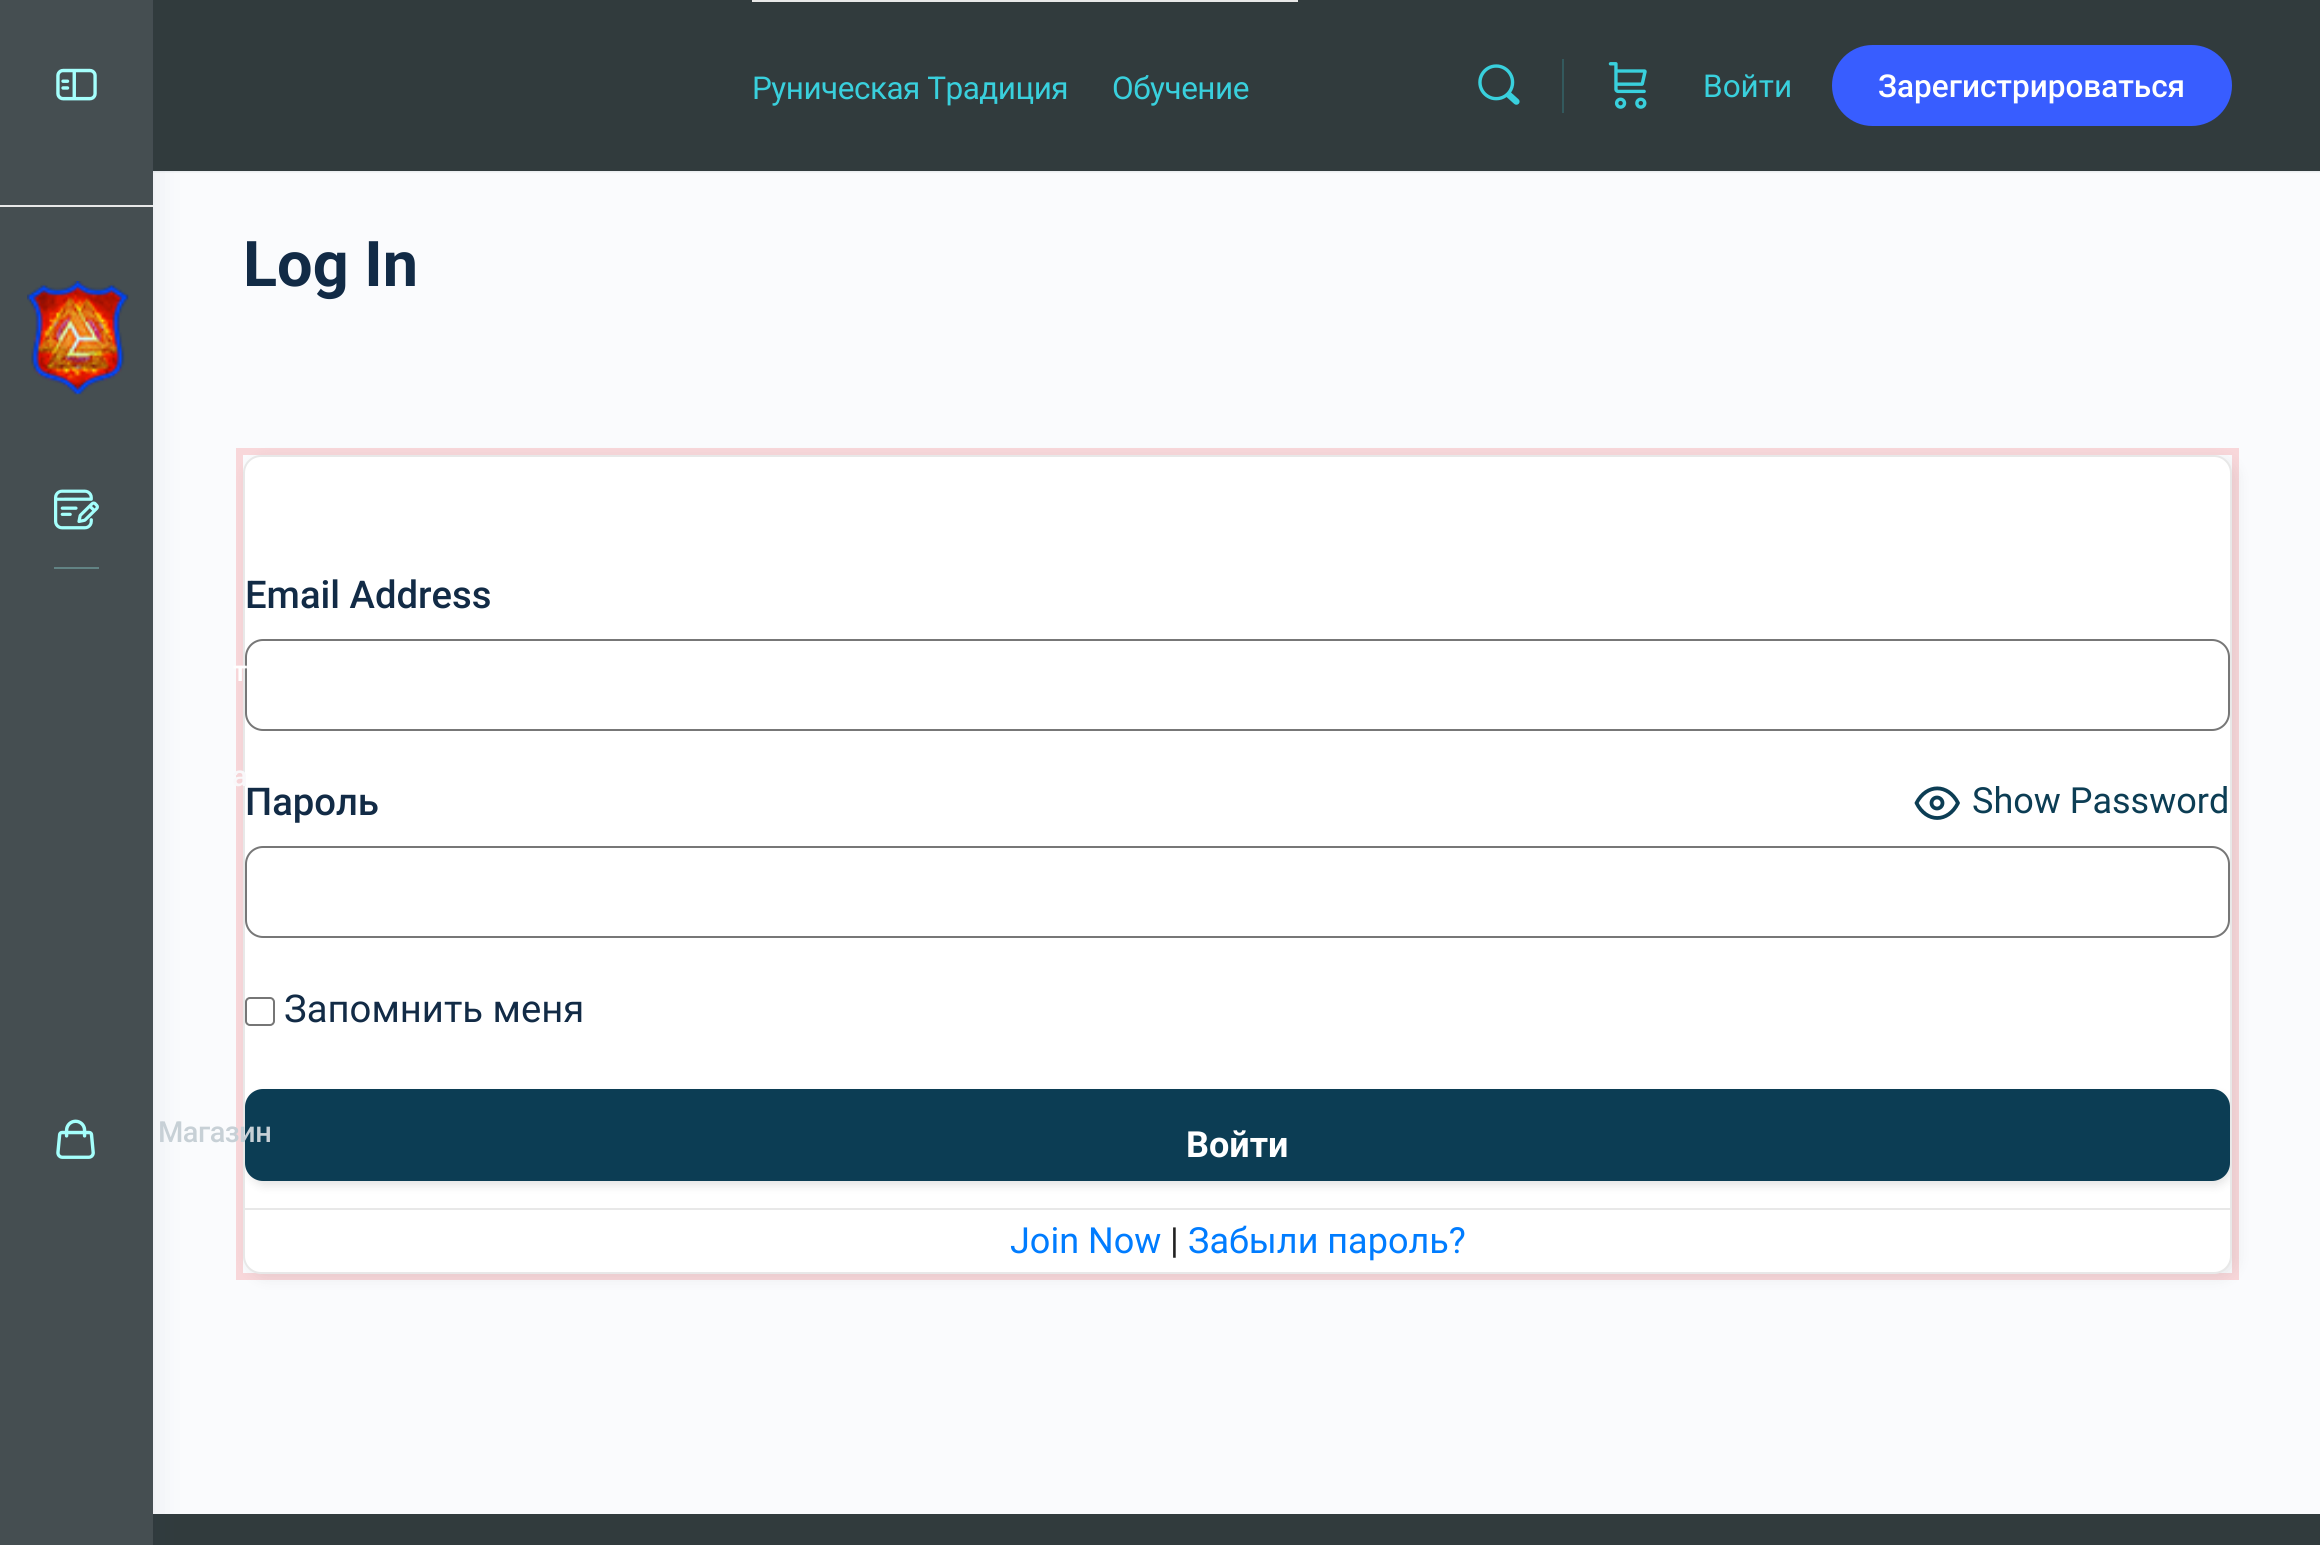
#include <cairo.h>
#include <math.h>
#include <stddef.h>


static void set_color(cairo_t *cr, unsigned color) {
    cairo_set_source_rgb(cr, (color >> 16) / 255.0, (color >> 8 & 255) / 255.0, (color & 255) / 255.0);
}

static void draw_text(cairo_t *cr, double x, double y, const char *s, const char *family, double size, int italic, int bold, unsigned color) {
    cairo_select_font_face(cr, family, italic ? CAIRO_FONT_SLANT_ITALIC : CAIRO_FONT_SLANT_NORMAL,
        bold ? CAIRO_FONT_WEIGHT_BOLD : CAIRO_FONT_WEIGHT_NORMAL);
    cairo_set_font_size(cr, size);
    set_color(cr, color);
    cairo_move_to(cr, x, y);
    cairo_show_text(cr, s);
}

static void draw_spaced(cairo_t *cr, double x, double y, const char *s, double letter, double word) {
    cairo_move_to(cr, x, y);
    while (*s) {
        char ch[5] = {0};
        int n = 0;
        do ch[n++] = *s++; while ((*s & 0xC0) == 0x80);
        cairo_show_text(cr, ch);
        cairo_rel_move_to(cr, letter + word * (*ch == ' '), 0);
    }
}

static void fill_rect(cairo_t *cr, double x, double y, double w, double h, unsigned color) {
    set_color(cr, color);
    cairo_rectangle(cr, x, y, w, h);
    cairo_fill(cr);
}

static void rounded_rect(cairo_t *cr, double x, double y, double w, double h, double r) {
    cairo_new_sub_path(cr);
    cairo_arc(cr, x + w - r, y + h - r, r, 0, M_PI / 2);
    cairo_arc(cr, x + r, y + h - r, r, M_PI / 2, M_PI);
    cairo_arc(cr, x + r, y + r, r, M_PI, 1.5 * M_PI);
    cairo_arc(cr, x + w - r, y + r, r, 1.5 * M_PI, 2 * M_PI);
    cairo_close_path(cr);
}

static void draw_shadow(cairo_t *cr, double x, double y, double w, double h, double r, double blur, double alpha) {
    cairo_push_group_with_content(cr, CAIRO_CONTENT_ALPHA);
    cairo_set_operator(cr, CAIRO_OPERATOR_SOURCE);
    for (int i = 15; i >= -15 && fmin(w, h) + blur * i / 3 > 0; i -= 2) {
        double e = blur * i / 6;
        cairo_set_source_rgba(cr, 0, 0, 0, alpha * erfc((i - 1) / 8.5) / 2);
        rounded_rect(cr, x - e, y - e, w + 2 * e, h + 2 * e, fmax(0, fmin(r + e + blur * .6, fmin(w, h) / 2 + e)));
        cairo_fill(cr);
    }
    cairo_pattern_t *soft = cairo_pop_group(cr);
    cairo_mask(cr, soft);
    cairo_pattern_destroy(soft);
}

static void draw_image(cairo_t *cr, const char *path, double x, double y, double w, double h) {
    cairo_surface_t *image = cairo_image_surface_create_from_png(path);
    cairo_save(cr);
    cairo_set_source_surface(cr, image, x, y);
    cairo_rectangle(cr, x, y, w, h);
    cairo_fill(cr);
    cairo_restore(cr);
    cairo_surface_destroy(image);
}

int main(void) {
    cairo_surface_t *surface = cairo_image_surface_create(CAIRO_FORMAT_RGB24, 2320, 1545);
    cairo_t *cr = cairo_create(surface);
    cairo_font_options_t *options = cairo_font_options_create();
    cairo_font_options_set_hint_metrics(options, CAIRO_HINT_METRICS_OFF);
    cairo_font_options_set_hint_style(options, CAIRO_HINT_STYLE_NONE);
    cairo_set_font_options(cr, options);
    cairo_set_miter_limit(cr, 4);
    set_color(cr, 0xFAFBFD);
    cairo_paint(cr);
    fill_rect(cr, 153, 1514, 2167, 31, 0x313B3D);
    set_color(cr, 0x122B46);
    draw_shadow(cr, 0, 7, 153, 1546, 0, 14.5, 0.1);
    fill_rect(cr, 0, 0, 153, 1545, 0x454E51);
    draw_image(cr, "assets/img1.png", 56, 68, 41, 33);
    fill_rect(cr, 0, 205, 153, 2, 0xE8E8E8);
    draw_image(cr, "assets/img2.png", 27, 281, 102, 114);
    draw_image(cr, "assets/img3.png", 54, 489, 45, 41);
    fill_rect(cr, 54, 567, 45, 2, 0x628384);
    cairo_rectangle(cr, 239.5, 451.5, 1996, 825);
    set_color(cr, 0xF8D7DA);
    cairo_set_line_width(cr, 7);
    cairo_stroke(cr);
    set_color(cr, 0x000000);
    draw_shadow(cr, 248, 459, 1989, 819, 18, 8, 0.07);
    set_color(cr, 0xFFFFFF);
    rounded_rect(cr, 244, 456, 1987, 817, 17);
    cairo_fill_preserve(cr);
    set_color(cr, 0xE8E8E8);
    cairo_set_line_width(cr, 2);
    cairo_stroke(cr);
    rounded_rect(cr, 246, 640, 1983, 90, 17);
    set_color(cr, 0x777777);
    cairo_stroke(cr);
    cairo_select_font_face(cr, "Roboto Medium", CAIRO_FONT_SLANT_NORMAL, CAIRO_FONT_WEIGHT_NORMAL);
    cairo_set_font_size(cr, 29);
    set_color(cr, 0xFFFFFF);
    draw_spaced(cr, 233, 681, "т", -0.5, 0);
    set_color(cr, 0xF9F8FA);
    draw_spaced(cr, 232, 786, "а", -0.5, 0);
    draw_image(cr, "assets/img4.png", 56, 1119, 39, 40);
    cairo_save(cr);
    rounded_rect(cr, 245, 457, 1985, 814, 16);
    cairo_clip(cr);
    set_color(cr, 0x000000);
    draw_shadow(cr, 248, 1094, 1984, 92, 18, 4.5, 0.1);
    cairo_restore(cr);
    set_color(cr, 0x0C3D54);
    rounded_rect(cr, 246, 1090, 1983, 90, 17);
    cairo_fill_preserve(cr);
    cairo_stroke(cr);
    set_color(cr, 0xC7D0D6);
    draw_spaced(cr, 158, 1142, "Магазин", -0.5, 0);
    set_color(cr, 0x41476C);
    draw_shadow(cr, 153, 0, 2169, 171, 0, 1, 0.15);
    cairo_set_source_rgba(cr, 0.545, 0.553, 0.616, 0.05);
    cairo_rectangle(cr, 153, 171, 2167, 2);
    cairo_fill(cr);
    fill_rect(cr, 153, 0, 2167, 171, 0x313B3D);
    fill_rect(cr, 752, 0, 546, 2, 0xE8E8E8);
    cairo_select_font_face(cr, "Roboto", CAIRO_FONT_SLANT_NORMAL, CAIRO_FONT_WEIGHT_NORMAL);
    cairo_set_font_size(cr, 31.5);
    set_color(cr, 0x39D0DD);
    draw_spaced(cr, 752, 99, "Руническая Традиция", -0.5, 0);
    draw_spaced(cr, 1112, 99, "Обучение", -0.5, 0);
    draw_image(cr, "assets/img5.png", 1478, 64, 42, 41);
    fill_rect(cr, 1562, 59, 2, 54, 0x33595D);
    draw_image(cr, "assets/img6.png", 1608, 62, 39, 47);
    draw_text(cr, 1703, 97, "Войти", "Roboto", 31.5, 0, 0, 0x39D0DD);
    set_color(cr, 0x385DFF);
    rounded_rect(cr, 1833, 46, 398, 79, 39.5);
    cairo_fill_preserve(cr);
    cairo_stroke(cr);
    draw_text(cr, 1878, 97, "Зарегистрироваться", "Roboto Medium", 31.5, 0, 0, 0xFFFFFF);
    draw_text(cr, 243, 286, "Log In", "Roboto", 63, 0, 1, 0x122B46);
    draw_text(cr, 245, 608, "Email Address", "Roboto Medium", 38.25, 0, 0, 0x122B46);
    draw_text(cr, 245, 815, "Пароль", "Roboto Medium", 38.25, 0, 0, 0x122B46);
    cairo_new_path(cr);
    cairo_move_to(cr, 1916.5, 803);
    cairo_curve_to(cr, 1926.5, 783.5, 1948, 783.5, 1958, 803);
    cairo_curve_to(cr, 1948, 823, 1926.5, 823, 1916.5, 803);
    cairo_close_path(cr);
    set_color(cr, 0x0C3D54);
    cairo_set_line_width(cr, 3.8);
    cairo_set_line_cap(cr, CAIRO_LINE_CAP_ROUND);
    cairo_set_line_join(cr, CAIRO_LINE_JOIN_ROUND);
    cairo_stroke(cr);
    cairo_arc(cr, 1937, 803, 5.5, 0, 2 * M_PI);
    cairo_set_line_cap(cr, CAIRO_LINE_CAP_BUTT);
    cairo_set_line_join(cr, CAIRO_LINE_JOIN_MITER);
    cairo_stroke(cr);
    draw_text(cr, 1972, 813, "Show Password", "Roboto", 36, 0, 0, 0x0C3D54);
    rounded_rect(cr, 246, 847, 1983, 90, 17);
    set_color(cr, 0x777777);
    cairo_set_line_width(cr, 2);
    cairo_stroke(cr);
    rounded_rect(cr, 246, 998, 28, 27, 4);
    set_color(cr, 0x767676);
    cairo_stroke(cr);
    draw_text(cr, 284, 1022, "Запомнить меня", "Roboto", 38.25, 0, 0, 0x122B46);
    draw_text(cr, 1186, 1157, "Войти", "Roboto", 36, 0, 1, 0xFFFFFF);
    fill_rect(cr, 245, 1208, 1985, 2, 0xE8E8E8);
    draw_text(cr, 1010, 1253, "Join Now", "Roboto", 36, 0, 0, 0x007CFF);
    draw_text(cr, 1170, 1253, "|", "Roboto", 36, 0, 0, 0x222222);
    draw_text(cr, 1188, 1253, "Забыли пароль?", "Roboto", 36, 0, 0, 0x007CFF);
    cairo_surface_write_to_png(surface, "output.png");
    cairo_font_options_destroy(options);
    cairo_destroy(cr);
    cairo_surface_destroy(surface);
    return 0;
}
